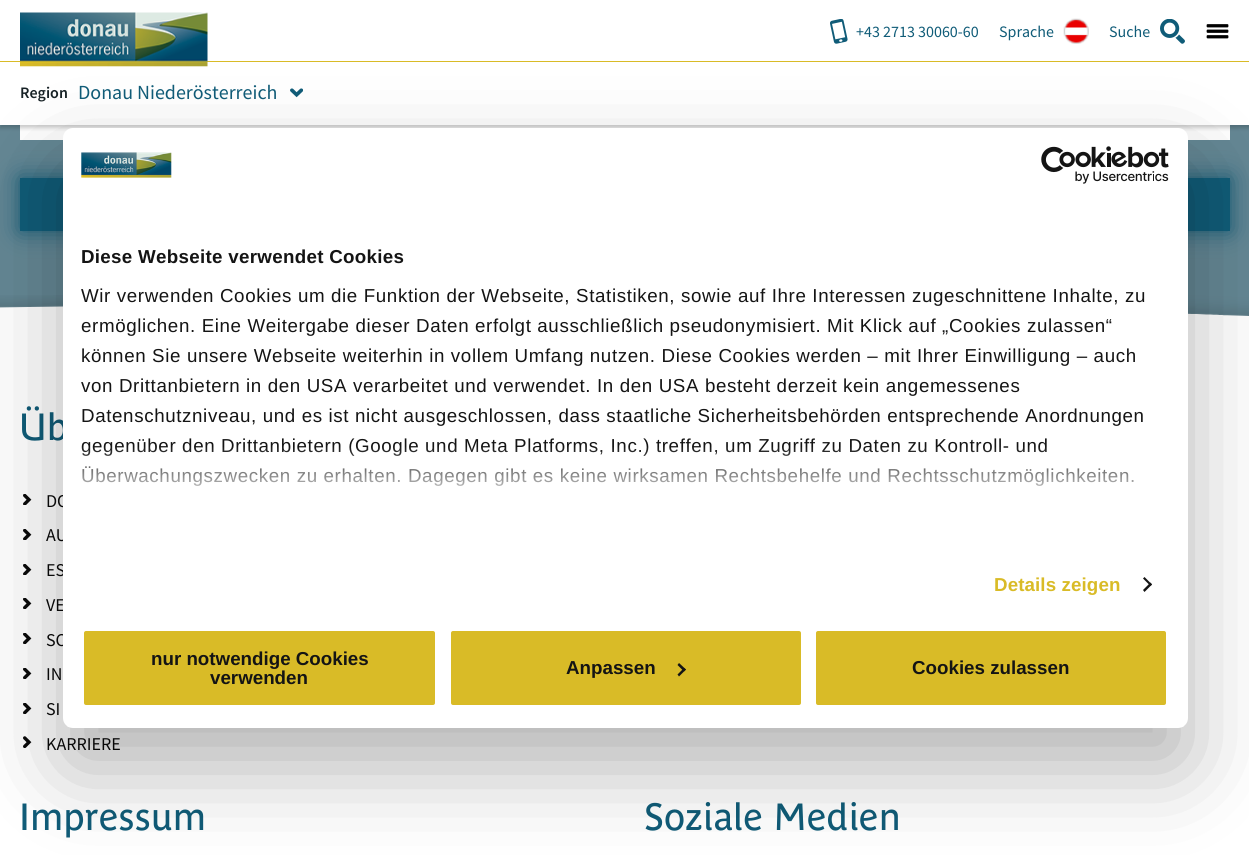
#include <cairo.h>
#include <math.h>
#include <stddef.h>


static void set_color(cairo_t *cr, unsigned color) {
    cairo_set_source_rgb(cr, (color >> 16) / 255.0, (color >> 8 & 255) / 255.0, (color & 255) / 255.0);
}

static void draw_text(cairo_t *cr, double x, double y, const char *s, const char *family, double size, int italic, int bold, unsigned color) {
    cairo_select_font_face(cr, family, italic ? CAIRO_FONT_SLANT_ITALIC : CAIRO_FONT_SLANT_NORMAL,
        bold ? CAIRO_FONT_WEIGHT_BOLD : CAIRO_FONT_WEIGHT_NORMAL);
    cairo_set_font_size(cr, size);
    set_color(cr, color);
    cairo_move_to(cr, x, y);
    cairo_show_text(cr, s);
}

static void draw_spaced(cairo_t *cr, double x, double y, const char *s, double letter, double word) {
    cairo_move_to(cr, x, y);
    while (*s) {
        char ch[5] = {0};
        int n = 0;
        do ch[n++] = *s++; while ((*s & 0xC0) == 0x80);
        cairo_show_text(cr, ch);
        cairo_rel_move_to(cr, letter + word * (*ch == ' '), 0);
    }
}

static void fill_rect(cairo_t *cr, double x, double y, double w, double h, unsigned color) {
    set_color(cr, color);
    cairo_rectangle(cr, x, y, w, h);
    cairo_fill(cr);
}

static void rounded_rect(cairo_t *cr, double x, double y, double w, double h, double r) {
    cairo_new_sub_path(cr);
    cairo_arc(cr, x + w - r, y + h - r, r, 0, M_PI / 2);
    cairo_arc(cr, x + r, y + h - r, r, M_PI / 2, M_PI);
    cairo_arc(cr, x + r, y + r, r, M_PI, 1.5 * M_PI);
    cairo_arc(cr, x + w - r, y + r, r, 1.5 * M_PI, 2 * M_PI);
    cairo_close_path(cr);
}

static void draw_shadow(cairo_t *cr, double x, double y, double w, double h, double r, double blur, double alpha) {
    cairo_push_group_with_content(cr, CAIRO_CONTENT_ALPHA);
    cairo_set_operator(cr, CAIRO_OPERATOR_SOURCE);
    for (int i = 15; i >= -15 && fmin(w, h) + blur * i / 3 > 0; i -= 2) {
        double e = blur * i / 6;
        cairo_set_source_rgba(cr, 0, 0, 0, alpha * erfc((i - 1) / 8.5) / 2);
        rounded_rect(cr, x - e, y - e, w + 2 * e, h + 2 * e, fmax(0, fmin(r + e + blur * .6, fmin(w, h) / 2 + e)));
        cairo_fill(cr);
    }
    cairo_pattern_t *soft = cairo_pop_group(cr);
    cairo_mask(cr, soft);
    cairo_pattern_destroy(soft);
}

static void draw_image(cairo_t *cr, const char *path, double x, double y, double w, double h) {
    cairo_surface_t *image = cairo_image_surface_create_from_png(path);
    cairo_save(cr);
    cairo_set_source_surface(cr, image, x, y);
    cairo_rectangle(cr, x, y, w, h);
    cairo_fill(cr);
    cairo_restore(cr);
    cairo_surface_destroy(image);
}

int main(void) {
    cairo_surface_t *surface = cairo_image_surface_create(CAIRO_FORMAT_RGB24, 1249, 855);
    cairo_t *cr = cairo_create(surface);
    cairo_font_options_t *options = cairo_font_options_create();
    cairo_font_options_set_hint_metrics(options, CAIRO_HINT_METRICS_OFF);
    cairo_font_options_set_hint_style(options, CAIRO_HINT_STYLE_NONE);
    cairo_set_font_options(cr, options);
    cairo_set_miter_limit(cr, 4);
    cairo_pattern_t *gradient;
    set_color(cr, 0xFFFFFF);
    cairo_paint(cr);
    fill_rect(cr, 0, 125, 1249, 191, 0x648794);
    fill_rect(cr, 20, 125, 59, 15, 0xFEFEFE);
    fill_rect(cr, 79, 125, 1099, 3, 0xFEFEFE);
    fill_rect(cr, 1178, 125, 52, 15, 0xFEFEFE);
    set_color(cr, 0x000000);
    draw_shadow(cr, 0, 3, 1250, 125, 0, 2, 0.2);
    fill_rect(cr, 0, 123, 1249, 2, 0xFFFFFF);
    fill_rect(cr, 0, 0, 1249, 123, 0xFFFFFF);
    fill_rect(cr, 0, 61, 1249, 1, 0xD9BB27);
    draw_image(cr, "assets/img1.png", 20, 12, 188, 55);
    draw_image(cr, "assets/img2.png", 830, 19, 18, 25);
    draw_text(cr, 856, 37, "+43 2713 30060-60", "Source Sans Pro", 16, 0, 0, 0x105C78);
    draw_text(cr, 999, 37, "Sprache", "Source Sans Pro", 16, 0, 0, 0x105C78);
    draw_image(cr, "assets/img3.png", 1063, 18, 26, 26);
    draw_text(cr, 1109, 37, "Suche", "Source Sans Pro", 16, 0, 0, 0x105C78);
    draw_image(cr, "assets/img4.png", 1160, 19, 25, 25);
    draw_image(cr, "assets/img5.png", 1206, 24, 23, 15);
    draw_text(cr, 20, 98, "Region", "Source Sans Pro SemiBold", 16, 0, 0, 0x172226);
    draw_text(cr, 78, 99, "Donau Niederösterreich", "Source Sans Pro", 20, 0, 0, 0x105C78);
    draw_image(cr, "assets/img6.png", 290, 88, 13, 10);
    set_color(cr, 0x105C78);
    draw_shadow(cr, 20, 178, 1210, 53, 0, 11, 1);
    fill_rect(cr, 20, 178, 1210, 53, 0x105C78);
    draw_image(cr, "assets/img7.png", 0, 295, 1249, 31);
    draw_text(cr, 19, 440, "Üb", "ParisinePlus", 37.5, 0, 0, 0x105C78);
    draw_image(cr, "assets/img8.png", 23, 494, 9, 11);
    draw_text(cr, 46, 507, "DO", "Source Sans Pro", 18, 0, 0, 0x0A0A0A);
    draw_image(cr, "assets/img8.png", 23, 529, 9, 11);
    draw_text(cr, 46, 541, "AU", "Source Sans Pro", 18, 0, 0, 0x0A0A0A);
    draw_image(cr, "assets/img8.png", 23, 564, 9, 11);
    draw_text(cr, 46, 576, "ES", "Source Sans Pro", 18, 0, 0, 0x0A0A0A);
    draw_image(cr, "assets/img9.png", 23, 598, 9, 11);
    draw_text(cr, 46, 611, "VE", "Source Sans Pro", 18, 0, 0, 0x0A0A0A);
    draw_image(cr, "assets/img9.png", 23, 633, 9, 11);
    draw_text(cr, 46, 646, "SC", "Source Sans Pro", 18, 0, 0, 0x0A0A0A);
    draw_image(cr, "assets/img9.png", 23, 668, 9, 11);
    draw_text(cr, 46, 680, "IN", "Source Sans Pro", 18, 0, 0, 0x0A0A0A);
    draw_image(cr, "assets/img9.png", 23, 703, 9, 11);
    draw_text(cr, 46, 715, "SI", "Source Sans Pro", 18, 0, 0, 0x0A0A0A);
    draw_image(cr, "assets/img10.png", 23, 736, 9, 12);
    draw_text(cr, 46, 750, "KARRIERE", "Source Sans Pro", 18, 0, 0, 0x0A0A0A);
    draw_text(cr, 19, 830, "Impressum", "ParisinePlus", 37.5, 0, 0, 0x105C78);
    draw_text(cr, 644, 830, "Soziale Medien", "ParisinePlus", 37.5, 0, 0, 0x105C78);
    set_color(cr, 0x000000);
    draw_shadow(cr, 63, 168, 1125, 600, 10, 42.5, 0.3);
    set_color(cr, 0xFFFFFF);
    rounded_rect(cr, 63, 128, 1125, 600, 10);
    cairo_fill(cr);
    draw_image(cr, "assets/img11.png", 81, 152, 91, 26);
    draw_image(cr, "assets/img12.png", 1041, 146, 128, 38);
    cairo_select_font_face(cr, "Liberation Sans", CAIRO_FONT_SLANT_NORMAL, CAIRO_FONT_WEIGHT_BOLD);
    cairo_set_font_size(cr, 18.75);
    set_color(cr, 0x141414);
    draw_spaced(cr, 81, 263, "Diese Webseite verwendet Cookies", 0.3, 0);
    cairo_select_font_face(cr, "Liberation Sans", CAIRO_FONT_SLANT_NORMAL, CAIRO_FONT_WEIGHT_NORMAL);
    draw_spaced(cr, 81, 302, "Wir verwenden Cookies um die Funktion der Webseite, Statistiken, sowie auf Ihre Interessen zugeschnittene Inhalte, zu", 0.62, 0);
    draw_spaced(cr, 81, 332, "ermöglichen. Eine Weitergabe dieser Daten erfolgt ausschließlich pseudonymisiert. Mit Klick auf „Cookies zulassen“", 0.62, 0);
    draw_spaced(cr, 81, 362, "können Sie unsere Webseite weiterhin in vollem Umfang nutzen. Diese Cookies werden – mit Ihrer Einwilligung – auch", 0.62, 0);
    draw_spaced(cr, 81, 392, "von Drittanbietern in den USA verarbeitet und verwendet. In den USA besteht derzeit kein angemessenes", 0.62, 0);
    draw_spaced(cr, 81, 422, "Datenschutzniveau, und es ist nicht ausgeschlossen, dass staatliche Sicherheitsbehörden entsprechende Anordnungen", 0.62, 0);
    draw_spaced(cr, 81, 452, "gegenüber den Drittanbietern (Google und Meta Platforms, Inc.) treffen, um Zugriff zu Daten zu Kontroll- und", 0.62, 0);
    draw_spaced(cr, 81, 482, "Überwachungszwecken zu erhalten. Dagegen gibt es keine wirksamen Rechtsbehelfe und Rechtsschutzmöglichkeiten.", 0.62, 0);
    gradient = cairo_pattern_create_linear(617, 540, 617, 446);
    cairo_pattern_add_color_stop_rgba(gradient, 0, 1, 1, 1, 1);
    cairo_pattern_add_color_stop_rgba(gradient, 0.5, 1, 1, 1, 0.8);
    cairo_pattern_add_color_stop_rgba(gradient, 1, 1, 1, 1, 0);
    cairo_set_source(cr, gradient);
    cairo_pattern_destroy(gradient);
    cairo_rectangle(cr, 82, 447, 1053, 39);
    cairo_fill(cr);
    cairo_select_font_face(cr, "Liberation Sans", CAIRO_FONT_SLANT_NORMAL, CAIRO_FONT_WEIGHT_BOLD);
    set_color(cr, 0xD9BB27);
    draw_spaced(cr, 994, 591, "Details zeigen", 0.1, 0);
    set_color(cr, 0x141414);
    cairo_new_path(cr);
    cairo_move_to(cr, 1144.5, 577);
    cairo_line_to(cr, 1152, 584.5);
    cairo_line_to(cr, 1150.5, 586);
    cairo_line_to(cr, 1143, 578.5);
    cairo_close_path(cr);
    cairo_fill(cr);
    cairo_new_path(cr);
    cairo_move_to(cr, 1150.5, 582.5);
    cairo_line_to(cr, 1152, 584.5);
    cairo_line_to(cr, 1144.5, 592);
    cairo_line_to(cr, 1143, 590);
    cairo_close_path(cr);
    cairo_fill(cr);
    cairo_save(cr);
    rounded_rect(cr, 63, 128, 1125, 600, 10);
    cairo_clip(cr);
    fill_rect(cr, 63, 726, 1125, 1, 0xFFFFFF);
    cairo_restore(cr);
    set_color(cr, 0xD9BB27);
    rounded_rect(cr, 82.5, 629.5, 354, 77, 3.5);
    cairo_fill_preserve(cr);
    set_color(cr, 0xFFFFFF);
    cairo_set_line_width(cr, 3);
    cairo_stroke(cr);
    draw_text(cr, 151, 665, "nur notwendige Cookies", "Liberation Sans", 18.75, 0, 1, 0x141414);
    draw_text(cr, 210, 684, "verwenden", "Liberation Sans", 18.75, 0, 1, 0x141414);
    set_color(cr, 0xD9BB27);
    rounded_rect(cr, 449.5, 629.5, 353, 77, 3.5);
    cairo_fill_preserve(cr);
    set_color(cr, 0xFFFFFF);
    cairo_stroke(cr);
    draw_text(cr, 566, 674, "Anpassen", "Liberation Sans", 18.75, 0, 1, 0x141414);
    cairo_new_path(cr);
    cairo_move_to(cr, 679, 663);
    cairo_line_to(cr, 686, 669.5);
    cairo_line_to(cr, 684, 671.5);
    cairo_line_to(cr, 677.5, 665);
    cairo_close_path(cr);
    cairo_fill(cr);
    cairo_new_path(cr);
    cairo_move_to(cr, 684, 668);
    cairo_line_to(cr, 686, 669.5);
    cairo_line_to(cr, 679, 676.5);
    cairo_line_to(cr, 677.5, 674.5);
    cairo_close_path(cr);
    cairo_fill(cr);
    set_color(cr, 0xD9BB27);
    rounded_rect(cr, 814.5, 629.5, 353, 77, 3.5);
    cairo_fill_preserve(cr);
    set_color(cr, 0xFFFFFF);
    cairo_stroke(cr);
    draw_text(cr, 912, 674, "Cookies zulassen", "Liberation Sans", 18.75, 0, 1, 0x141414);
    cairo_surface_write_to_png(surface, "output.png");
    cairo_font_options_destroy(options);
    cairo_destroy(cr);
    cairo_surface_destroy(surface);
    return 0;
}
